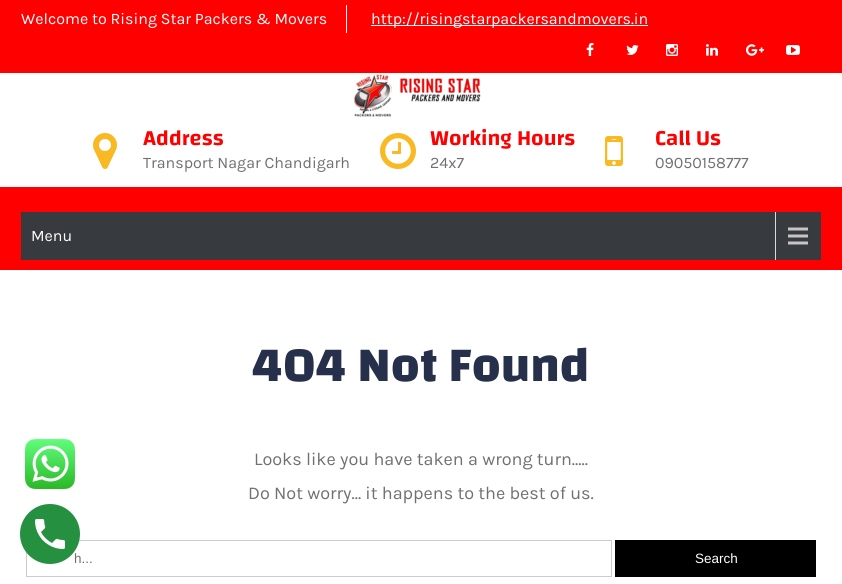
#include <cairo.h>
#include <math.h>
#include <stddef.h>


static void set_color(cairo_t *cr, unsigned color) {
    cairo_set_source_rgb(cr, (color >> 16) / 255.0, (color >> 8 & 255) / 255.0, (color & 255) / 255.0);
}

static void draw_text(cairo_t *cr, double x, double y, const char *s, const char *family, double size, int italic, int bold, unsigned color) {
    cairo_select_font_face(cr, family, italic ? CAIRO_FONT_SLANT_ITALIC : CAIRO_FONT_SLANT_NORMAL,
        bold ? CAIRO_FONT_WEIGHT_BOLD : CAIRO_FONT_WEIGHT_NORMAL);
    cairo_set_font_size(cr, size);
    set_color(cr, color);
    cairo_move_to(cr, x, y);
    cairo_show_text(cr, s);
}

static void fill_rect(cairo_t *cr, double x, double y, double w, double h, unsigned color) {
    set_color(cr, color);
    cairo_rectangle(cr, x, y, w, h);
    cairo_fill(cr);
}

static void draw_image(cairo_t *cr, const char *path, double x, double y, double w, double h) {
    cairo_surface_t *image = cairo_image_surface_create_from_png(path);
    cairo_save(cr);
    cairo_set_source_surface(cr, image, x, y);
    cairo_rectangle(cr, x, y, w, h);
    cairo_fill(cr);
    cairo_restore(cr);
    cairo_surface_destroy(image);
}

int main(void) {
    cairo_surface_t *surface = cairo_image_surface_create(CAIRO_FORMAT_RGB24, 842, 584);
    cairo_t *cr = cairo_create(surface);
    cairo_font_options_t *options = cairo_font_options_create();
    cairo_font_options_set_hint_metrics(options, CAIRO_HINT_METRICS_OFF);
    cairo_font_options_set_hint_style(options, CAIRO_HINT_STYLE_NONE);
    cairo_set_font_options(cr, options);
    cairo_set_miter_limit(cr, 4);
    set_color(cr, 0xFFFFFF);
    cairo_paint(cr);
    fill_rect(cr, 0, 0, 842, 73, 0xFF0000);
    draw_text(cr, 21, 24, "Welcome to Rising Star Packers & Movers", "Karla", 16, 0, 0, 0xFFFFFF);
    fill_rect(cr, 346, 5, 1, 28, 0xFFFFFF);
    fill_rect(cr, 371, 25, 277, 1, 0xFFFFFF);
    draw_text(cr, 371, 24, "http://risingstarpackersandmovers.in", "Karla", 16, 0, 0, 0xFFFFFF);
    draw_image(cr, "assets/img1.png", 586, 43, 8, 13);
    draw_image(cr, "assets/img2.png", 626, 45, 13, 10);
    draw_image(cr, "assets/img3.png", 666, 44, 12, 12);
    draw_image(cr, "assets/img4.png", 706, 44, 12, 12);
    draw_image(cr, "assets/img5.png", 746, 44, 18, 12);
    draw_image(cr, "assets/img6.png", 786, 45, 14, 10);
    draw_image(cr, "assets/img7.png", 353, 74, 128, 43);
    draw_image(cr, "assets/img8.png", 93, 133, 24, 36);
    draw_text(cr, 143, 145, "Address", "Changa SemiBold", 22, 0, 0, 0xFF0000);
    draw_text(cr, 143, 168, "Transport Nagar Chandigarh", "Karla", 16, 0, 0, 0x707070);
    draw_image(cr, "assets/img9.png", 380, 133, 36, 36);
    draw_text(cr, 430, 145, "Working Hours", "Changa SemiBold", 22, 0, 0, 0xFF0000);
    draw_text(cr, 430, 168, "24x7", "Karla", 16, 0, 0, 0x707070);
    draw_image(cr, "assets/img10.png", 605, 136, 18, 30);
    draw_text(cr, 655, 145, "Call Us", "Changa SemiBold", 22, 0, 0, 0xFF0000);
    draw_text(cr, 655, 168, "09050158777", "Karla", 16, 0, 0, 0x707070);
    fill_rect(cr, 0, 187, 842, 83, 0xFF0000);
    fill_rect(cr, 21, 212, 800, 48, 0x373A3F);
    draw_image(cr, "assets/img11.png", 775, 212, 33, 48);
    draw_text(cr, 31, 241, "Menu", "Karla", 16, 0, 0, 0xFFFFFF);
    draw_image(cr, "assets/img12.png", 25, 439, 50, 50);
    draw_text(cr, 252, 381, "404 Not Found", "Changa", 50, 0, 1, 0x27304B);
    draw_text(cr, 254, 465, "Looks like you have taken a wrong turn.....", "Karla", 18, 0, 0, 0x707070);
    draw_text(cr, 248, 499, "Do Not worry... it happens to the best of us.", "Karla", 18, 0, 0, 0x707070);
    cairo_rectangle(cr, 26.5, 540.5, 585, 36);
    set_color(cr, 0xCCCCCC);
    cairo_set_line_width(cr, 1);
    cairo_stroke(cr);
    draw_text(cr, 74, 563, "h...", "Liberation Sans", 13.5, 0, 0, 0x707070);
    fill_rect(cr, 615, 540, 201, 37, 0x000000);
    draw_text(cr, 695, 563, "Search", "Liberation Sans", 13.5, 0, 0, 0xFFFFFF);
    set_color(cr, 0x269041);
    cairo_new_path(cr);
    cairo_arc(cr, 50, 534, 30, 0, 2 * M_PI);
    cairo_fill(cr);
    draw_image(cr, "assets/img13.png", 35, 519, 30, 30);
    cairo_surface_write_to_png(surface, "output.png");
    cairo_font_options_destroy(options);
    cairo_destroy(cr);
    cairo_surface_destroy(surface);
    return 0;
}
